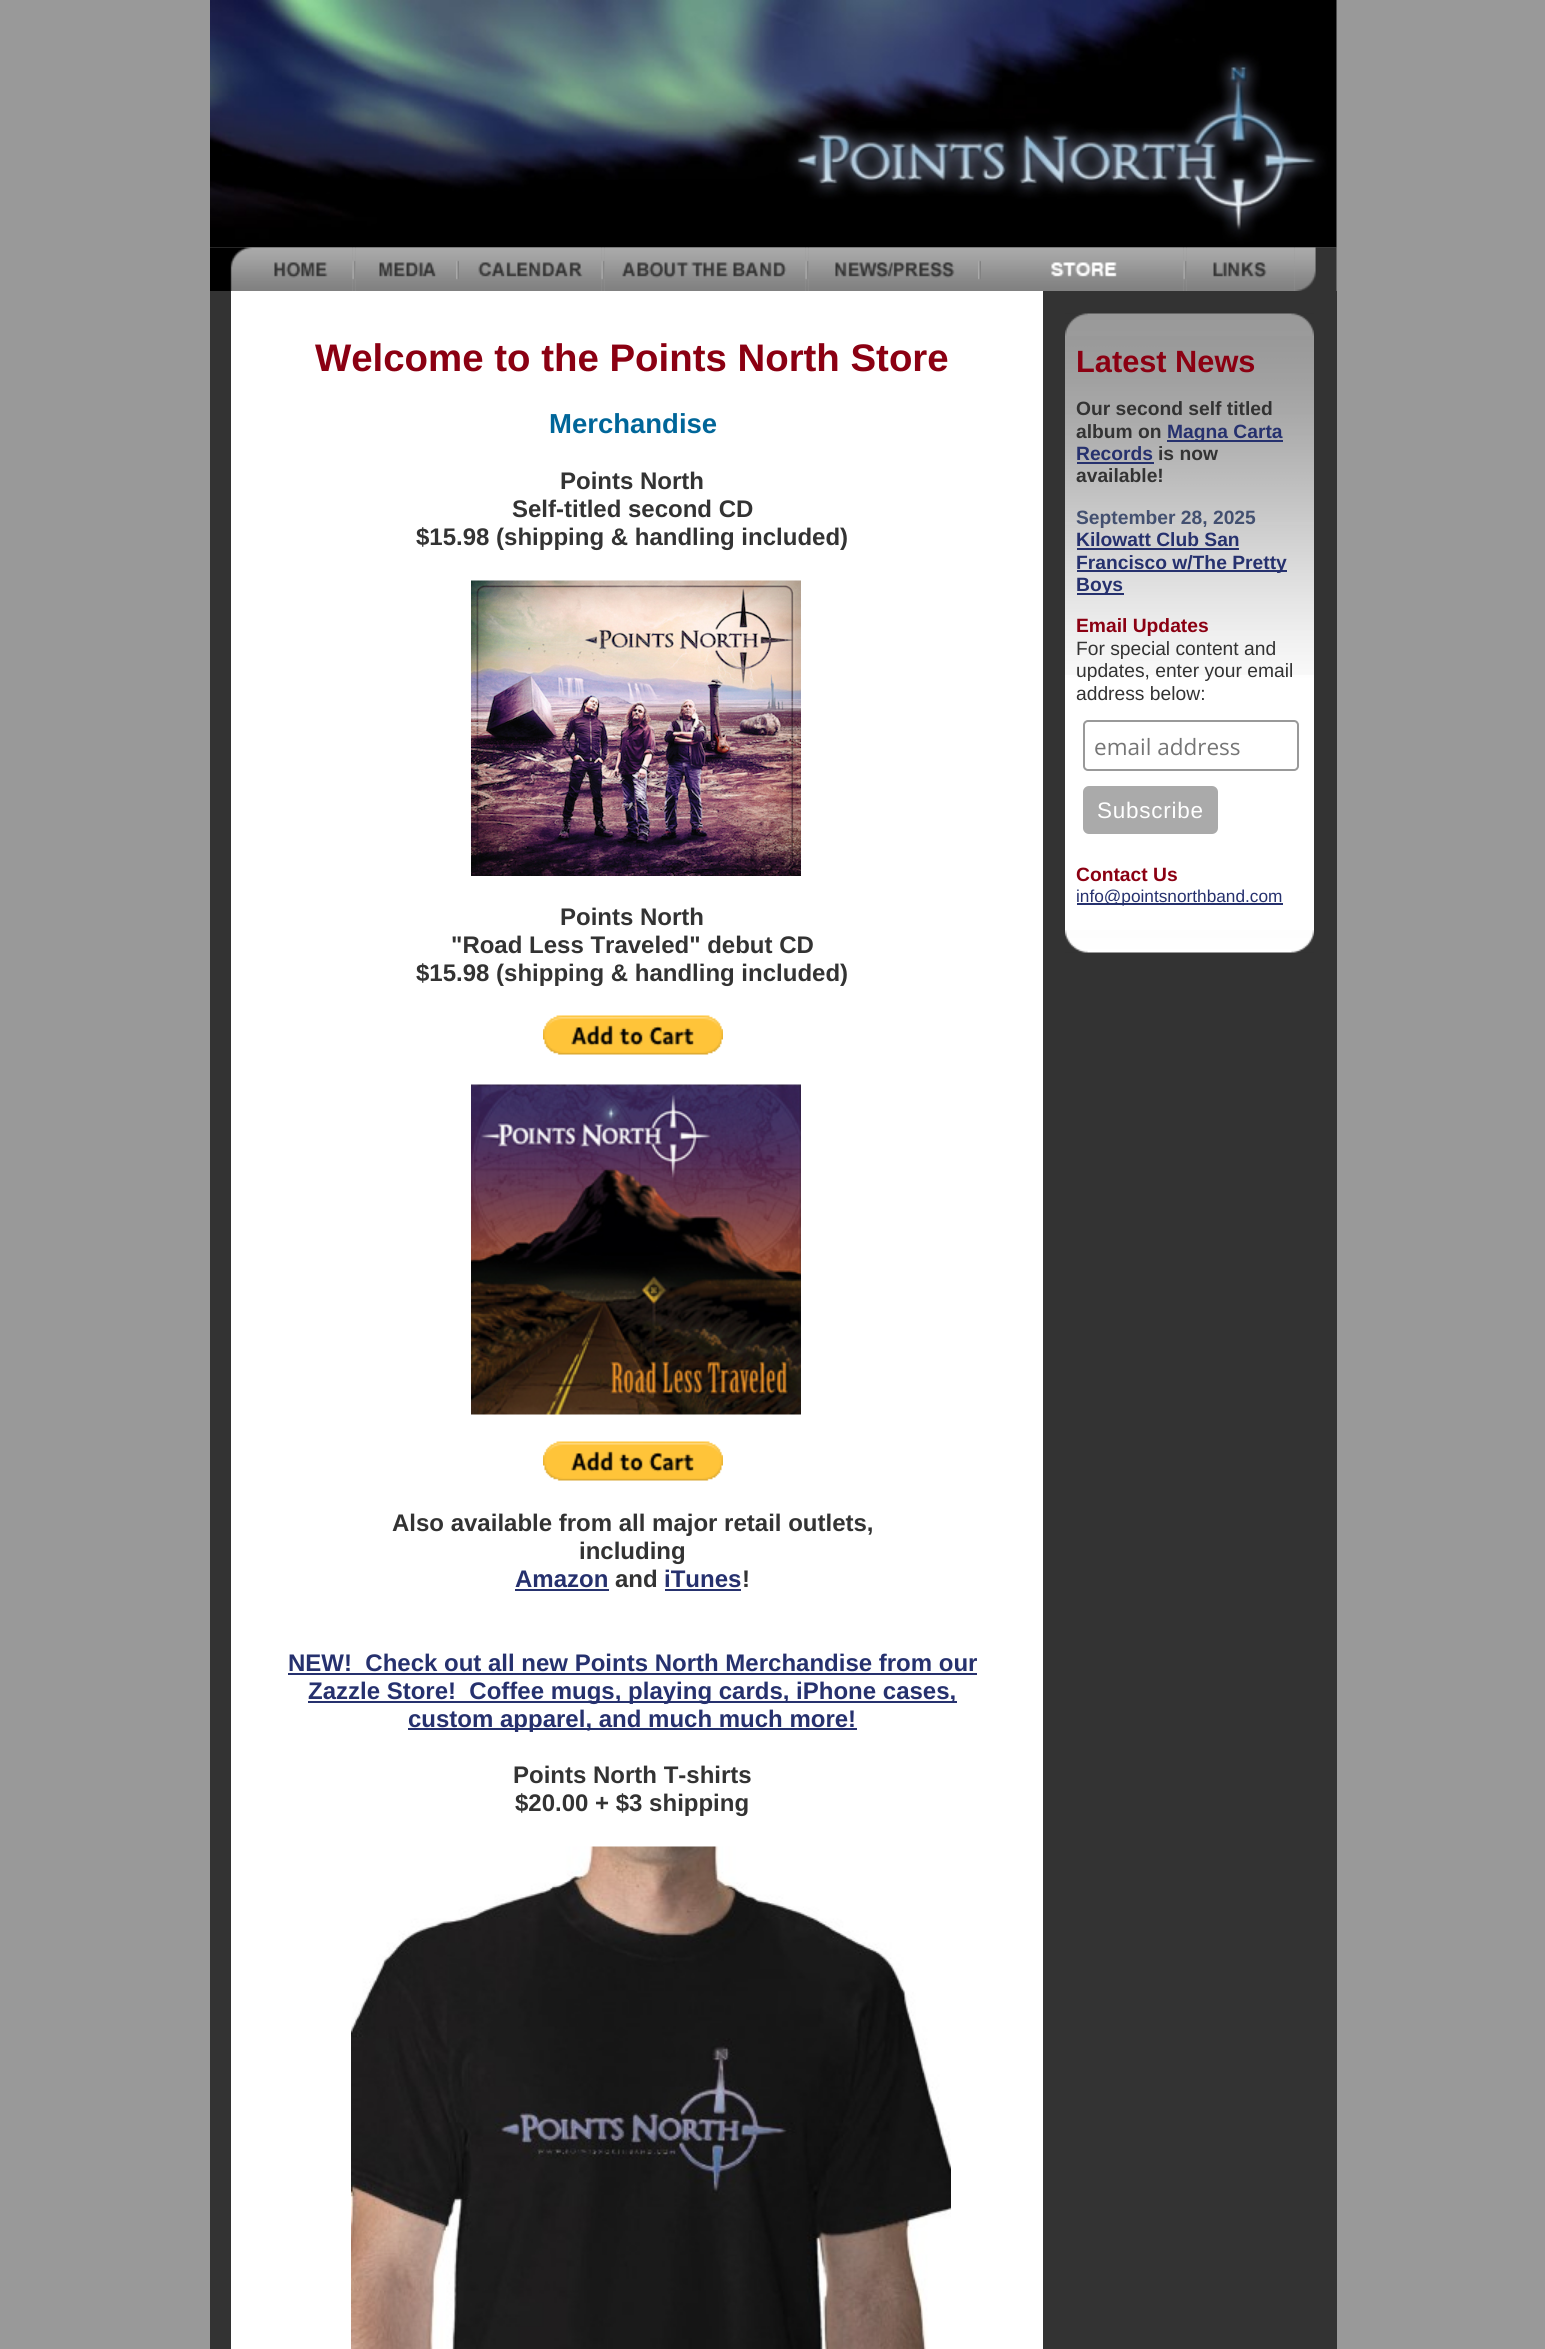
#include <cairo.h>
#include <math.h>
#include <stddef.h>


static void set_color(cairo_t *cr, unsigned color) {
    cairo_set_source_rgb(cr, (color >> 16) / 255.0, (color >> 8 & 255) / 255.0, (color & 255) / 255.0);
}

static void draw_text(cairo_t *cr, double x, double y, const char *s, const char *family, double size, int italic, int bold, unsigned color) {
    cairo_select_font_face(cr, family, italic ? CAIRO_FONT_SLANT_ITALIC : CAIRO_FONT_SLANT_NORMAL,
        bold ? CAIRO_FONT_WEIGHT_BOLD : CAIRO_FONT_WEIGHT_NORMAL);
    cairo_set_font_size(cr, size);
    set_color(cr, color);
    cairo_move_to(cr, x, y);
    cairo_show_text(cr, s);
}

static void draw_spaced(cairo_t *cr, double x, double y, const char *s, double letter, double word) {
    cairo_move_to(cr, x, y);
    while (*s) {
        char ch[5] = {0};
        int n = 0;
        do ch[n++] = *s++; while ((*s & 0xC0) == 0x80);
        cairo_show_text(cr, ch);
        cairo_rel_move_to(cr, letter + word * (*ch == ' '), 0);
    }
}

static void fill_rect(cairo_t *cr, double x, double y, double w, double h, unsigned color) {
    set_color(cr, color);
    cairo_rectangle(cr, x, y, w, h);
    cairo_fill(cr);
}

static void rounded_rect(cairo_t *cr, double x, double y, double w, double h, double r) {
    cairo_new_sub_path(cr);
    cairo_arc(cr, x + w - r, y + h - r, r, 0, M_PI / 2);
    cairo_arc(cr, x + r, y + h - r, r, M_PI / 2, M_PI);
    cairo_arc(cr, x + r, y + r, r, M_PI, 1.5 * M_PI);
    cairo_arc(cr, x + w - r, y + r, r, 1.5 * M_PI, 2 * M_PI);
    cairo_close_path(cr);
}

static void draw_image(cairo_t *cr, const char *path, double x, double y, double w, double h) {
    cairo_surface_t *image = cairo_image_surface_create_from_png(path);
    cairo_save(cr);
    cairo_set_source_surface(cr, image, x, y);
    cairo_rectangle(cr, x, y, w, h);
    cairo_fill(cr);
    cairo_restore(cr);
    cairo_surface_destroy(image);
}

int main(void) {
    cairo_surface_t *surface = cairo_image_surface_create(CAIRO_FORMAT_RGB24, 1545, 2349);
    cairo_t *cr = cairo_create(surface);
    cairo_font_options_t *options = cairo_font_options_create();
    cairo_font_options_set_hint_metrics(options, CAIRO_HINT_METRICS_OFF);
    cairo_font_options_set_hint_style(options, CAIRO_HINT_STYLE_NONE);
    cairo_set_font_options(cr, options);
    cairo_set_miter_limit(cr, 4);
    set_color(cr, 0x999999);
    cairo_paint(cr);
    draw_image(cr, "assets/img1.png", 210, 0, 1127, 248);
    draw_image(cr, "assets/img2.png", 210, 247, 42, 44);
    draw_image(cr, "assets/img3.png", 252, 247, 101, 44);
    draw_image(cr, "assets/img4.png", 352, 247, 4, 44);
    draw_image(cr, "assets/img5.png", 355, 247, 101, 44);
    draw_image(cr, "assets/img6.png", 456, 247, 3, 44);
    draw_image(cr, "assets/img7.png", 459, 247, 143, 44);
    draw_image(cr, "assets/img4.png", 601, 247, 4, 44);
    draw_image(cr, "assets/img8.png", 604, 247, 202, 44);
    draw_image(cr, "assets/img4.png", 805, 247, 4, 44);
    draw_image(cr, "assets/img9.png", 808, 247, 170, 44);
    draw_image(cr, "assets/img10.png", 978, 247, 3, 44);
    draw_image(cr, "assets/img11.png", 981, 247, 203, 44);
    draw_image(cr, "assets/img4.png", 1183, 247, 4, 44);
    draw_image(cr, "assets/img12.png", 1186, 247, 109, 44);
    draw_image(cr, "assets/img13.png", 1294, 247, 43, 44);
    fill_rect(cr, 210, 291, 1127, 2058, 0x333333);
    fill_rect(cr, 231, 291, 812, 2058, 0xFFFFFF);
    draw_text(cr, 315, 371, "Welcome to the Points North Store", "Liberation Sans", 38.4, 0, 1, 0x8B0012);
    draw_text(cr, 549, 433, "Merchandise", "Liberation Sans", 27.5, 0, 1, 0x006699);
    draw_text(cr, 560, 489, "Points North", "Liberation Sans", 24, 0, 1, 0x333333);
    draw_text(cr, 512, 517, "Self-titled second CD", "Liberation Sans", 24, 0, 1, 0x333333);
    draw_text(cr, 416, 545, "$15.98 (shipping & handling included)", "Liberation Sans", 24, 0, 1, 0x333333);
    draw_image(cr, "assets/img14.png", 471, 580, 330, 296);
    draw_text(cr, 560, 925, "Points North", "Liberation Sans", 24, 0, 1, 0x333333);
    draw_text(cr, 451, 953, "\"Road Less Traveled\" debut CD", "Liberation Sans", 24, 0, 1, 0x333333);
    draw_text(cr, 416, 981, "$15.98 (shipping & handling included)", "Liberation Sans", 24, 0, 1, 0x333333);
    draw_image(cr, "assets/img15.png", 543, 1015, 180, 40);
    draw_image(cr, "assets/img16.png", 471, 1084, 330, 331);
    draw_image(cr, "assets/img15.png", 543, 1441, 180, 40);
    draw_text(cr, 392, 1531, "Also available from all major retail outlets,", "Liberation Sans", 24, 0, 1, 0x333333);
    draw_text(cr, 579, 1559, "including", "Liberation Sans", 24, 0, 1, 0x333333);
    draw_text(cr, 515, 1587, "Amazon", "Liberation Sans", 24, 0, 1, 0x26316E);
    fill_rect(cr, 515, 1589, 94, 2, 0x26316E);
    draw_text(cr, 615, 1587, "and", "Liberation Sans", 24, 0, 1, 0x333333);
    draw_text(cr, 664, 1587, "iTunes", "Liberation Sans", 24, 0, 1, 0x26316E);
    fill_rect(cr, 665, 1589, 76, 2, 0x26316E);
    draw_text(cr, 742, 1587, "!", "Liberation Sans", 24, 0, 1, 0x333333);
    draw_text(cr, 288, 1671, "NEW!  Check out all new Points North Merchandise from our", "Liberation Sans", 24, 0, 1, 0x26316E);
    fill_rect(cr, 288, 1673, 689, 2, 0x26316E);
    fill_rect(cr, 308, 1701, 649, 2, 0x26316E);
    draw_text(cr, 308, 1699, "Zazzle Store!  Coffee mugs, playing cards, iPhone cases,", "Liberation Sans", 24, 0, 1, 0x26316E);
    fill_rect(cr, 408, 1728, 449, 2, 0x26316E);
    draw_text(cr, 408, 1727, "custom apparel, and much much more!", "Liberation Sans", 24, 0, 1, 0x26316E);
    draw_text(cr, 513, 1783, "Points North T-shirts", "Liberation Sans", 24, 0, 1, 0x333333);
    draw_text(cr, 515, 1811, "$20.00 + $3 shipping", "Liberation Sans", 24, 0, 1, 0x333333);
    draw_image(cr, "assets/img17.png", 351, 1846, 600, 503);
    draw_image(cr, "assets/img18.png", 1065, 313, 249, 23);
    draw_image(cr, "assets/img19.png", 1065, 336, 249, 594);
    draw_text(cr, 1076, 372, "Latest News", "Liberation Sans", 30.75, 0, 1, 0x8B0012);
    draw_text(cr, 1076, 415, "Our second self titled", "Liberation Sans", 19.25, 0, 1, 0x333333);
    draw_text(cr, 1076, 438, "album on", "Liberation Sans", 19.25, 0, 1, 0x333333);
    fill_rect(cr, 1167, 440, 116, 2, 0x26316E);
    draw_text(cr, 1167, 438, "Magna Carta", "Liberation Sans", 19.25, 0, 1, 0x26316E);
    draw_text(cr, 1076, 460, "Records", "Liberation Sans", 19.25, 0, 1, 0x26316E);
    fill_rect(cr, 1077, 462, 77, 2, 0x26316E);
    draw_text(cr, 1158, 460, "is now", "Liberation Sans", 19.25, 0, 1, 0x333333);
    draw_text(cr, 1076, 482, "available!", "Liberation Sans", 19.25, 0, 1, 0x333333);
    draw_text(cr, 1076, 524, "September 28, 2025", "Liberation Sans", 19.25, 0, 1, 0x435070);
    draw_text(cr, 1076, 546, "Kilowatt Club San", "Liberation Sans", 19.25, 0, 1, 0x26316E);
    fill_rect(cr, 1077, 548, 162, 2, 0x26316E);
    fill_rect(cr, 1077, 570, 210, 2, 0x26316E);
    draw_text(cr, 1076, 569, "Francisco w/The Pretty", "Liberation Sans", 19.25, 0, 1, 0x26316E);
    fill_rect(cr, 1077, 593, 47, 2, 0x26316E);
    draw_text(cr, 1076, 591, "Boys", "Liberation Sans", 19.25, 0, 1, 0x26316E);
    draw_text(cr, 1076, 632, "Email Updates", "Liberation Sans", 19.25, 0, 1, 0x8B0012);
    draw_text(cr, 1076, 655, "For special content and", "Liberation Sans", 19.25, 0, 0, 0x333333);
    draw_text(cr, 1076, 677, "updates, enter your email", "Liberation Sans", 19.25, 0, 0, 0x333333);
    draw_text(cr, 1076, 700, "address below:", "Liberation Sans", 19.25, 0, 0, 0x333333);
    rounded_rect(cr, 1084, 721, 214, 49, 4);
    set_color(cr, 0x999999);
    cairo_stroke(cr);
    draw_text(cr, 1094, 755, "email address", "Open Sans", 22.5, 0, 0, 0x757575);
    set_color(cr, 0xAAAAAA);
    rounded_rect(cr, 1083, 786, 135, 48, 6);
    cairo_fill(cr);
    cairo_select_font_face(cr, "Liberation Sans", CAIRO_FONT_SLANT_NORMAL, CAIRO_FONT_WEIGHT_NORMAL);
    set_color(cr, 0xFFFFFF);
    draw_spaced(cr, 1097, 818, "Subscribe", 0.75, 0);
    draw_text(cr, 1076, 881, "Contact Us", "Liberation Sans", 19.25, 0, 1, 0x8B0012);
    fill_rect(cr, 1077, 903, 206, 2, 0x26316E);
    draw_text(cr, 1076, 902, "info@pointsnorthband.com", "Liberation Sans", 17.25, 0, 0, 0x26316E);
    draw_image(cr, "assets/img20.png", 1065, 930, 249, 23);
    cairo_surface_write_to_png(surface, "output.png");
    cairo_font_options_destroy(options);
    cairo_destroy(cr);
    cairo_surface_destroy(surface);
    return 0;
}
